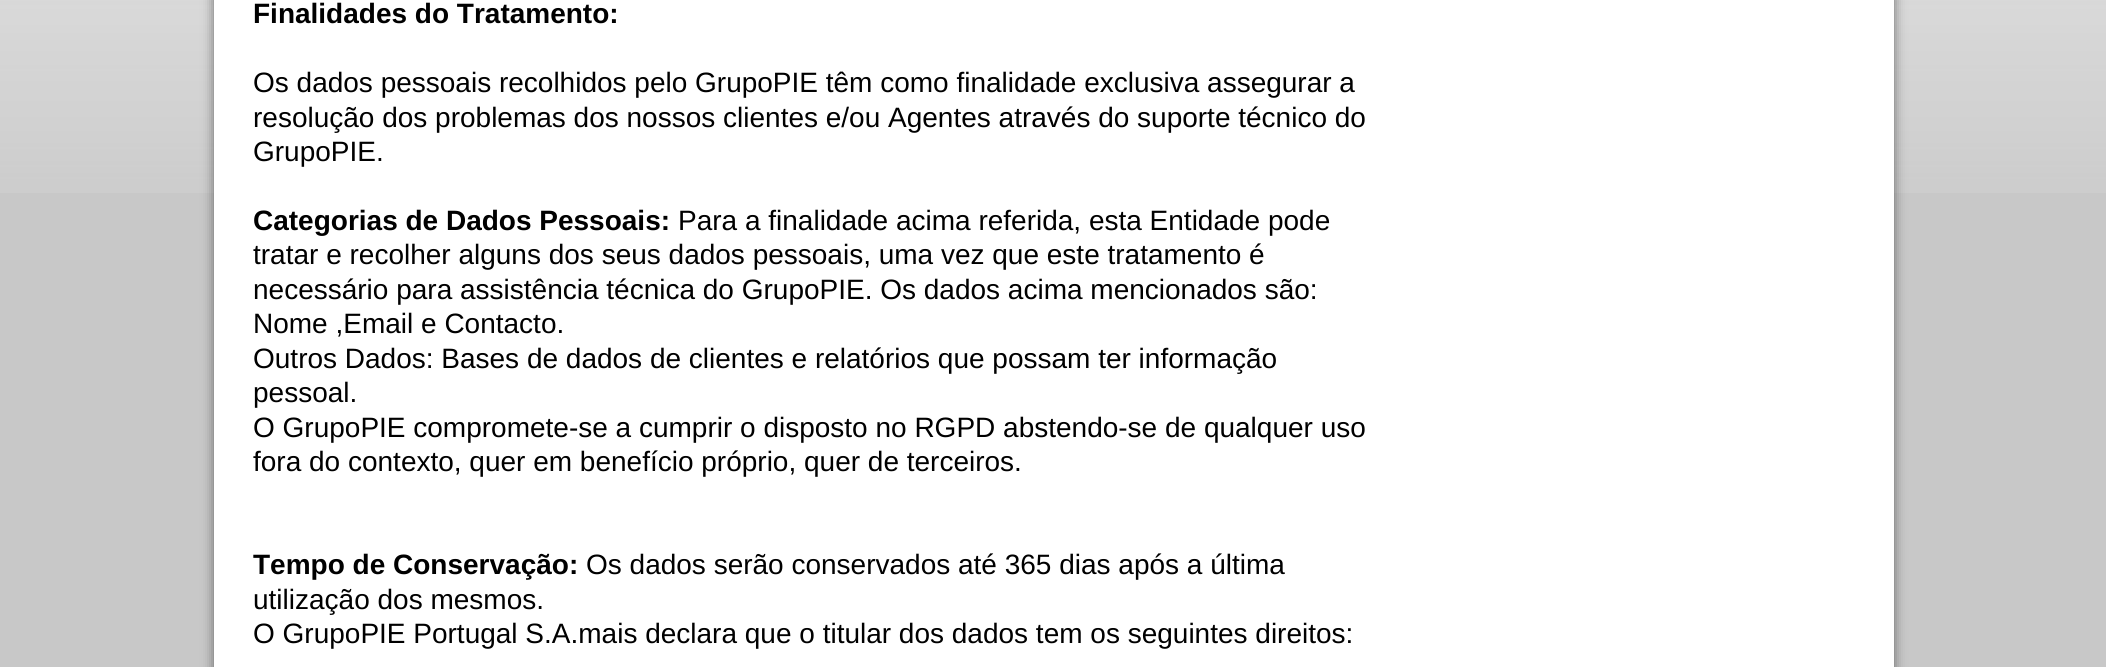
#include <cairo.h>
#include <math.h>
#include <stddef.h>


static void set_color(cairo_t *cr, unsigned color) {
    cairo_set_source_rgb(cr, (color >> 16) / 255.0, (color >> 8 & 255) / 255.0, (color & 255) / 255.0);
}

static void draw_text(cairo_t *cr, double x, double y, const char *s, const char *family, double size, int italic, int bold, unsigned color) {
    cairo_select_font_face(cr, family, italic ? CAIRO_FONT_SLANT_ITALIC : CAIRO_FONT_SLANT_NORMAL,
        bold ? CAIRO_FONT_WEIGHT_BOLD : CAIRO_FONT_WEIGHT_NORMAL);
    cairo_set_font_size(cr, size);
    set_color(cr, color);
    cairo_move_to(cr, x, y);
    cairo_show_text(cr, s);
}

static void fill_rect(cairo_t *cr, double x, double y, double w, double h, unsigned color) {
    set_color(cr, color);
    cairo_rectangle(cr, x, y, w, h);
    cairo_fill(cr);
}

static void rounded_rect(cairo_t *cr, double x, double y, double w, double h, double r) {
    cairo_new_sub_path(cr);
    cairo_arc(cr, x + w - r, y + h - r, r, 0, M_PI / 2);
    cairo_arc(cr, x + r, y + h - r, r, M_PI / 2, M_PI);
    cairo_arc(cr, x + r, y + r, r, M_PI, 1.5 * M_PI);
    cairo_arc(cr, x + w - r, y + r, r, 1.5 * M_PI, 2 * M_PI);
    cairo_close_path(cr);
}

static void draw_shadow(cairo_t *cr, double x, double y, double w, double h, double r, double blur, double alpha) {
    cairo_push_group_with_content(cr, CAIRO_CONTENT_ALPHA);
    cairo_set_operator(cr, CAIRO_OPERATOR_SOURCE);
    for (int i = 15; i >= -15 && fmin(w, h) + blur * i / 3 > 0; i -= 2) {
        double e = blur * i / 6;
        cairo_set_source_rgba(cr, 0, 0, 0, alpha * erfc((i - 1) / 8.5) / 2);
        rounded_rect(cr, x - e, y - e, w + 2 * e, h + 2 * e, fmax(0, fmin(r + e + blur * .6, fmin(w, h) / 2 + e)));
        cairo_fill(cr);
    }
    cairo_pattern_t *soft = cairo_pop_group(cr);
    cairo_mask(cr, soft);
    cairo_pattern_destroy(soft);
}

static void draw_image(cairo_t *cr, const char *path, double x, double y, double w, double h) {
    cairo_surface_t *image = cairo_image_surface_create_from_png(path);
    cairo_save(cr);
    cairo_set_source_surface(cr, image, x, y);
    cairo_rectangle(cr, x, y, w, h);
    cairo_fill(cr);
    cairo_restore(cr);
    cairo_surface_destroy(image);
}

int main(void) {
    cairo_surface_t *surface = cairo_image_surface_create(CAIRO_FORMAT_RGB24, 2106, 667);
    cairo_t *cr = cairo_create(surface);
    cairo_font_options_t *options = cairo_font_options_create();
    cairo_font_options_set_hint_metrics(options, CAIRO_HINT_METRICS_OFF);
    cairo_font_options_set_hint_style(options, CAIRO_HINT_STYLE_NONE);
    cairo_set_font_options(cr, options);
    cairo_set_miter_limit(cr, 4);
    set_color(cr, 0xC8C8C8);
    cairo_paint(cr);
    draw_image(cr, "assets/img1.png", 0, 0, 2106, 193);
    set_color(cr, 0x000000);
    draw_shadow(cr, 214, -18, 1680, 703, 0, 6, 0.5);
    fill_rect(cr, 214, 0, 1680, 667, 0xFFFFFF);
    draw_text(cr, 253, 23, "Finalidades do Tratamento:", "Liberation Sans", 28, 0, 1, 0x000000);
    draw_text(cr, 253, 92, "Os dados pessoais recolhidos pelo GrupoPIE têm como finalidade exclusiva assegurar a", "Liberation Sans", 28, 0, 0, 0x000000);
    draw_text(cr, 253, 127, "resolução dos problemas dos nossos clientes e/ou Agentes através do suporte técnico do", "Liberation Sans", 28, 0, 0, 0x000000);
    draw_text(cr, 253, 161, "GrupoPIE.", "Liberation Sans", 28, 0, 0, 0x000000);
    draw_text(cr, 253, 230, "Categorias de Dados Pessoais:", "Liberation Sans", 28, 0, 1, 0x000000);
    draw_text(cr, 678, 230, "Para a finalidade acima referida, esta Entidade pode", "Liberation Sans", 28, 0, 0, 0x000000);
    draw_text(cr, 253, 264, "tratar e recolher alguns dos seus dados pessoais, uma vez que este tratamento é", "Liberation Sans", 28, 0, 0, 0x000000);
    draw_text(cr, 253, 299, "necessário para assistência técnica do GrupoPIE. Os dados acima mencionados são:", "Liberation Sans", 28, 0, 0, 0x000000);
    draw_text(cr, 253, 333, "Nome ,Email e Contacto.", "Liberation Sans", 28, 0, 0, 0x000000);
    draw_text(cr, 253, 368, "Outros Dados: Bases de dados de clientes e relatórios que possam ter informação", "Liberation Sans", 28, 0, 0, 0x000000);
    draw_text(cr, 253, 402, "pessoal.", "Liberation Sans", 28, 0, 0, 0x000000);
    draw_text(cr, 253, 437, "O GrupoPIE compromete-se a cumprir o disposto no RGPD abstendo-se de qualquer uso", "Liberation Sans", 28, 0, 0, 0x000000);
    draw_text(cr, 253, 471, "fora do contexto, quer em benefício próprio, quer de terceiros.", "Liberation Sans", 28, 0, 0, 0x000000);
    draw_text(cr, 253, 574, "Tempo de Conservação:", "Liberation Sans", 28, 0, 1, 0x000000);
    draw_text(cr, 586, 574, "Os dados serão conservados até 365 dias após a última", "Liberation Sans", 28, 0, 0, 0x000000);
    draw_text(cr, 253, 609, "utilização dos mesmos.", "Liberation Sans", 28, 0, 0, 0x000000);
    draw_text(cr, 253, 643, "O GrupoPIE Portugal S.A.mais declara que o titular dos dados tem os seguintes direitos:", "Liberation Sans", 28, 0, 0, 0x000000);
    cairo_surface_write_to_png(surface, "output.png");
    cairo_font_options_destroy(options);
    cairo_destroy(cr);
    cairo_surface_destroy(surface);
    return 0;
}
